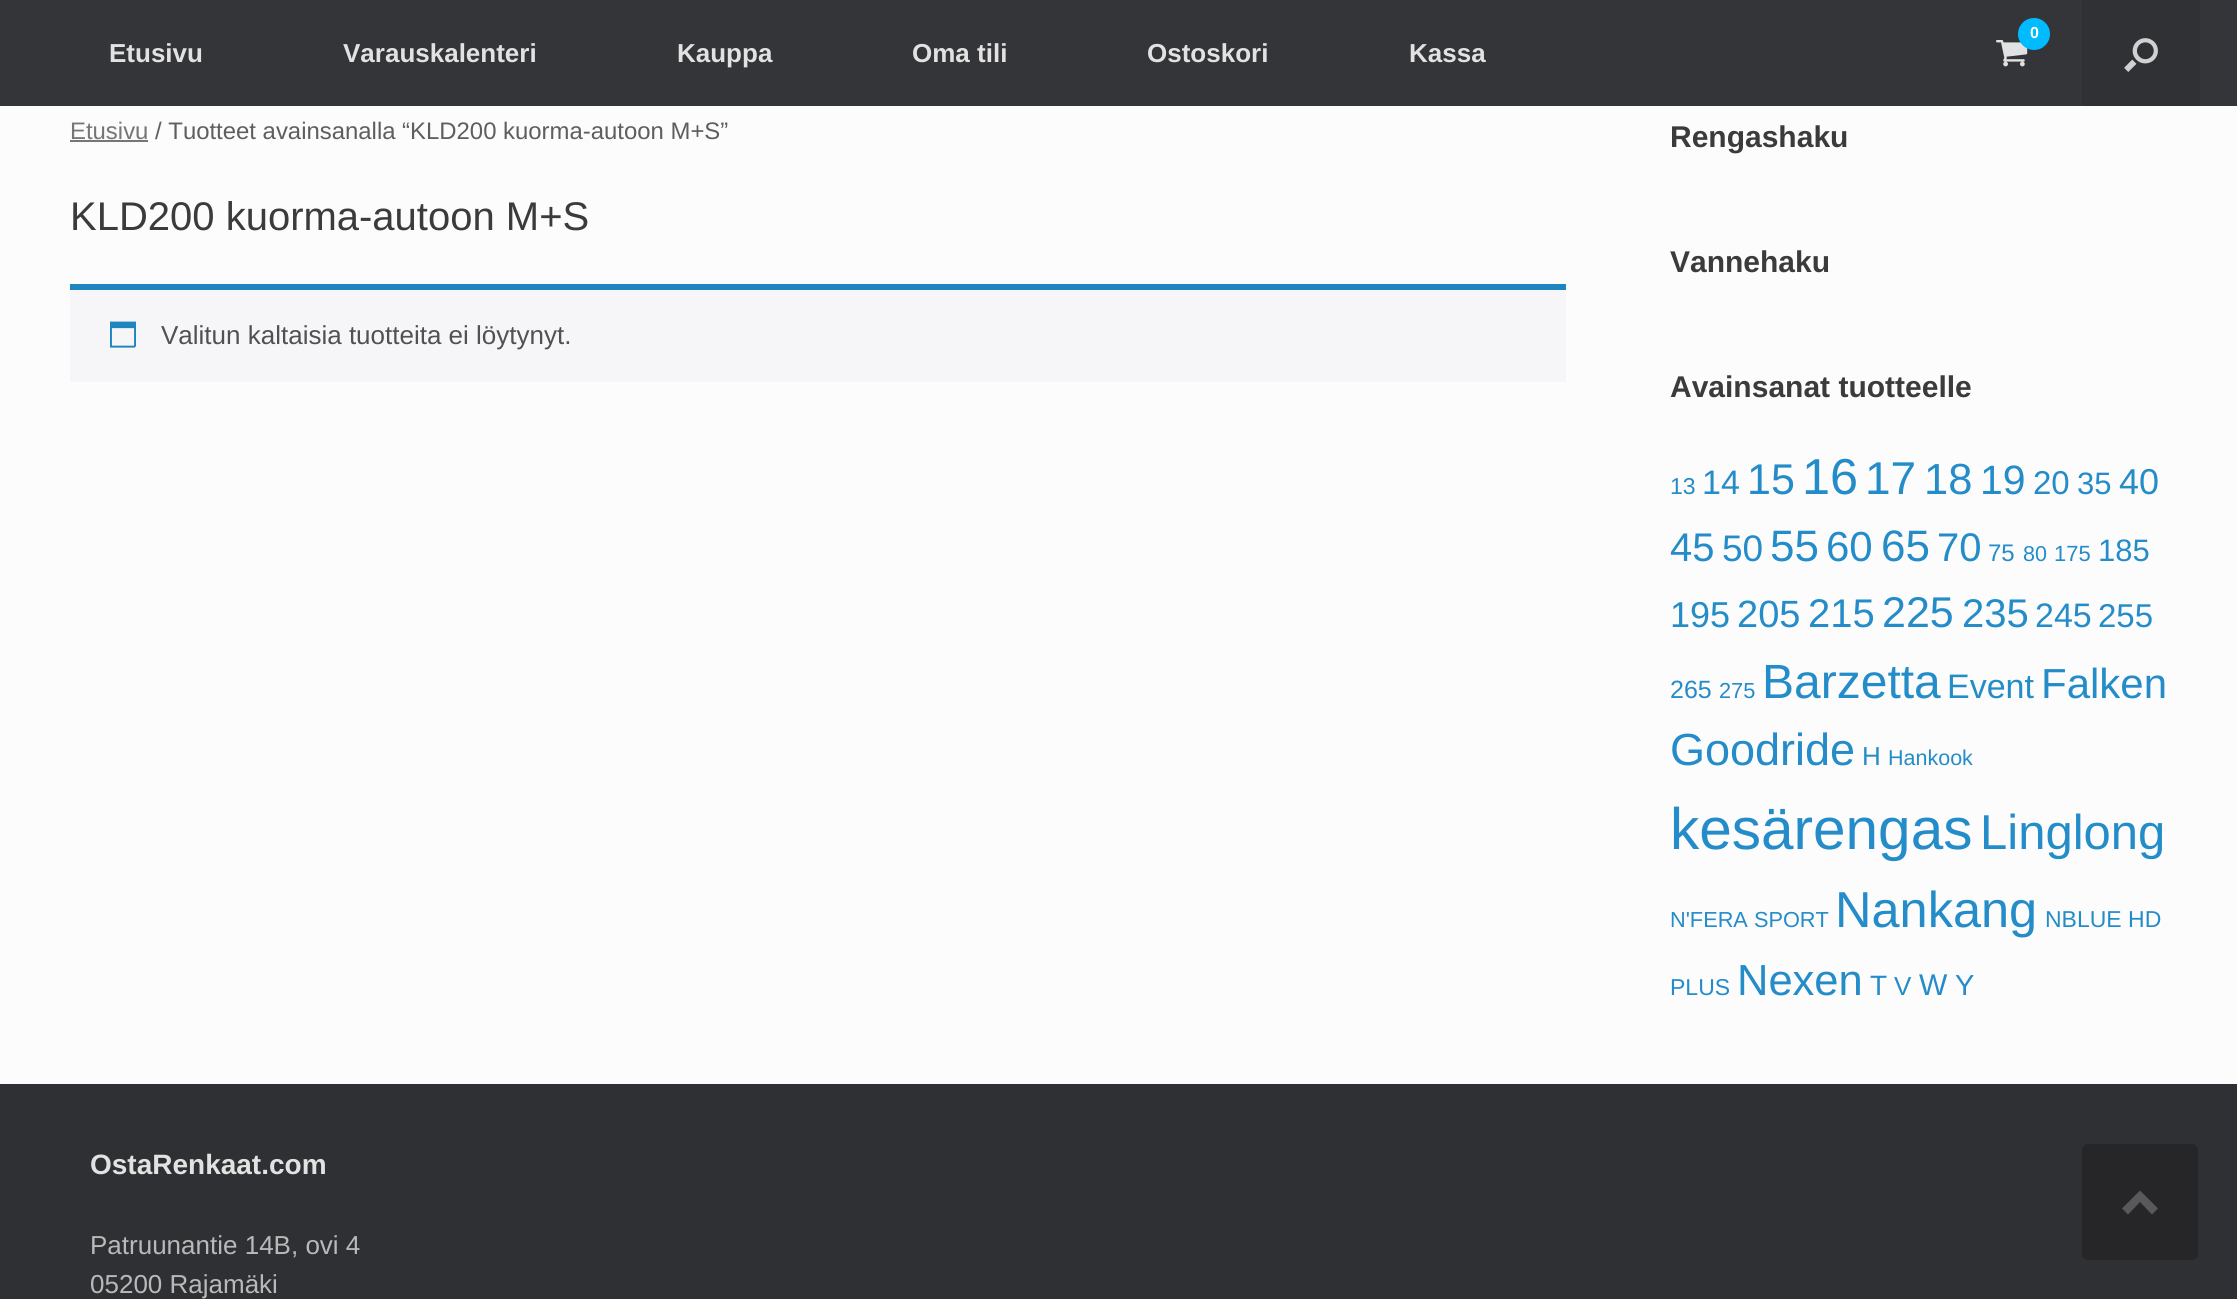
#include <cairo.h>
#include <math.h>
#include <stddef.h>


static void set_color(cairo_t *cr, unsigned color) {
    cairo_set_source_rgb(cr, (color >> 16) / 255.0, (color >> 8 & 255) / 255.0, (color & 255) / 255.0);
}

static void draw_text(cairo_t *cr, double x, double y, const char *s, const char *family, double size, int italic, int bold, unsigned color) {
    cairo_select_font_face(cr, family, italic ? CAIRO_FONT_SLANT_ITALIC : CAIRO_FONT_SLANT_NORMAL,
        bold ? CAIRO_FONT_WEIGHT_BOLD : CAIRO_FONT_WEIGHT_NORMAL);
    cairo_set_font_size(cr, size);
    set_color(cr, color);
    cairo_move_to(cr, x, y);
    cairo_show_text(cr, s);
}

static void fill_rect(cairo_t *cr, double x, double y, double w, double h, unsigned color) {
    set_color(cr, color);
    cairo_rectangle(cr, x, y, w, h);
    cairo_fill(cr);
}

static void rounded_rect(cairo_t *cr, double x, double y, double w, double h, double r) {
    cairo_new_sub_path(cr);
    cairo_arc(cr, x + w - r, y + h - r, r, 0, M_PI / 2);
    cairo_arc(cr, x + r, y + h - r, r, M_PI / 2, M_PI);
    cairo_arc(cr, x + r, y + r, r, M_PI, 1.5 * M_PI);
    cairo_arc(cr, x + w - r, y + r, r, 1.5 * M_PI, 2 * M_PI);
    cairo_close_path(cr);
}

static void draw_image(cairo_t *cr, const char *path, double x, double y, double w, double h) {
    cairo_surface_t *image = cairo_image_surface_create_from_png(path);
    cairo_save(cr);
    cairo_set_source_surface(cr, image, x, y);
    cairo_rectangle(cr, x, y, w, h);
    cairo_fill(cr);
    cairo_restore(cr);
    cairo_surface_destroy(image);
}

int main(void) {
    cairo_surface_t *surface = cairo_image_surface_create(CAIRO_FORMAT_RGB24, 2237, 1299);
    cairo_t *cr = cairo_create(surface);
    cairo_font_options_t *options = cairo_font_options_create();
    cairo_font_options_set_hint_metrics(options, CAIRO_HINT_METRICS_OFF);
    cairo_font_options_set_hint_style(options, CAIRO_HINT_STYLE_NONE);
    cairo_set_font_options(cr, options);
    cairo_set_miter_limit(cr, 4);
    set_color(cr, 0x2F3033);
    cairo_paint(cr);
    fill_rect(cr, 0, 0, 2237, 106, 0x343538);
    draw_image(cr, "assets/img1.png", 1996, 40, 32, 27);
    set_color(cr, 0x00BCFF);
    cairo_arc(cr, 2034, 34, 16, 0, 2 * M_PI);
    cairo_fill(cr);
    draw_text(cr, 2030, 38, "0", "Liberation Sans", 16, 0, 1, 0xFFFFFF);
    draw_text(cr, 109, 62, "Etusivu", "Liberation Sans", 26, 0, 1, 0xE2E2E2);
    draw_text(cr, 343, 62, "Varauskalenteri", "Liberation Sans", 26, 0, 1, 0xE2E2E2);
    draw_text(cr, 677, 62, "Kauppa", "Liberation Sans", 26, 0, 1, 0xE2E2E2);
    draw_text(cr, 912, 62, "Oma tili", "Liberation Sans", 26, 0, 1, 0xE2E2E2);
    draw_text(cr, 1147, 62, "Ostoskori", "Liberation Sans", 26, 0, 1, 0xE2E2E2);
    draw_text(cr, 1409, 62, "Kassa", "Liberation Sans", 26, 0, 1, 0xE2E2E2);
    fill_rect(cr, 2082, 0, 118, 106, 0x303134);
    draw_image(cr, "assets/img2.png", 2124, 38, 34, 34);
    fill_rect(cr, 0, 106, 2237, 978, 0xFCFCFC);
    draw_text(cr, 70, 139, "Etusivu", "Liberation Sans", 23.9, 0, 0, 0x767676);
    fill_rect(cr, 70, 140, 78, 2, 0x767676);
    draw_text(cr, 155, 139, "/ Tuotteet avainsanalla “KLD200 kuorma-autoon M+S”", "Liberation Sans", 23.9, 0, 0, 0x5E5E5E);
    draw_text(cr, 70, 230, "KLD200 kuorma-autoon M+S", "Liberation Sans", 40, 0, 0, 0x3B3B3B);
    fill_rect(cr, 70, 290, 1496, 92, 0xF6F5F8);
    fill_rect(cr, 70, 284, 1496, 6, 0x1E85BE);
    draw_image(cr, "assets/img3.png", 110, 321, 26, 27);
    draw_text(cr, 161, 344, "Valitun kaltaisia tuotteita ei löytynyt.", "Liberation Sans", 26, 0, 0, 0x515151);
    draw_text(cr, 1670, 147, "Rengashaku", "Liberation Sans", 30, 0, 1, 0x3B3B3B);
    draw_text(cr, 1670, 272, "Vannehaku", "Liberation Sans", 30, 0, 1, 0x3B3B3B);
    draw_text(cr, 1670, 397, "Avainsanat tuotteelle", "Liberation Sans", 30, 0, 1, 0x3B3B3B);
    draw_text(cr, 1670, 494, "13", "Liberation Sans", 23, 0, 0, 0x248CC8);
    draw_text(cr, 1702, 494, "14", "Liberation Sans", 34, 0, 0, 0x248CC8);
    draw_text(cr, 1747, 494, "15", "Liberation Sans", 43, 0, 0, 0x248CC8);
    draw_text(cr, 1802, 494, "16", "Liberation Sans", 50.5, 0, 0, 0x248CC8);
    draw_text(cr, 1865, 494, "17", "Liberation Sans", 46, 0, 0, 0x248CC8);
    draw_text(cr, 1924, 494, "18", "Liberation Sans", 43.5, 0, 0, 0x248CC8);
    draw_text(cr, 1980, 494, "19", "Liberation Sans", 41, 0, 0, 0x248CC8);
    draw_text(cr, 2033, 494, "20", "Liberation Sans", 33, 0, 0, 0x248CC8);
    draw_text(cr, 2077, 494, "35", "Liberation Sans", 31, 0, 0, 0x248CC8);
    draw_text(cr, 2119, 494, "40", "Liberation Sans", 36, 0, 0, 0x248CC8);
    draw_text(cr, 1670, 561, "45", "Liberation Sans", 40, 0, 0, 0x248CC8);
    draw_text(cr, 1722, 561, "50", "Liberation Sans", 37, 0, 0, 0x248CC8);
    draw_text(cr, 1770, 561, "55", "Liberation Sans", 44, 0, 0, 0x248CC8);
    draw_text(cr, 1826, 561, "60", "Liberation Sans", 42, 0, 0, 0x248CC8);
    draw_text(cr, 1881, 561, "65", "Liberation Sans", 44, 0, 0, 0x248CC8);
    draw_text(cr, 1937, 561, "70", "Liberation Sans", 40, 0, 0, 0x248CC8);
    draw_text(cr, 1988, 561, "75", "Liberation Sans", 24, 0, 0, 0x248CC8);
    draw_text(cr, 2023, 561, "80", "Liberation Sans", 21.5, 0, 0, 0x248CC8);
    draw_text(cr, 2054, 561, "175", "Liberation Sans", 22, 0, 0, 0x248CC8);
    draw_text(cr, 2098, 561, "185", "Liberation Sans", 31, 0, 0, 0x248CC8);
    draw_text(cr, 1670, 627, "195", "Liberation Sans", 36, 0, 0, 0x248CC8);
    draw_text(cr, 1737, 627, "205", "Liberation Sans", 38, 0, 0, 0x248CC8);
    draw_text(cr, 1808, 627, "215", "Liberation Sans", 40, 0, 0, 0x248CC8);
    draw_text(cr, 1882, 627, "225", "Liberation Sans", 43, 0, 0, 0x248CC8);
    draw_text(cr, 1962, 627, "235", "Liberation Sans", 40, 0, 0, 0x248CC8);
    draw_text(cr, 2035, 627, "245", "Liberation Sans", 34, 0, 0, 0x248CC8);
    draw_text(cr, 2098, 627, "255", "Liberation Sans", 33, 0, 0, 0x248CC8);
    draw_text(cr, 1670, 698, "265", "Liberation Sans", 25, 0, 0, 0x248CC8);
    draw_text(cr, 1719, 698, "275", "Liberation Sans", 21.75, 0, 0, 0x248CC8);
    draw_text(cr, 1762, 698, "Barzetta", "Liberation Sans", 48, 0, 0, 0x248CC8);
    draw_text(cr, 1947, 698, "Event", "Liberation Sans", 34, 0, 0, 0x248CC8);
    draw_text(cr, 2041, 698, "Falken", "Liberation Sans", 42, 0, 0, 0x248CC8);
    draw_text(cr, 1670, 765, "Goodride", "Liberation Sans", 45, 0, 0, 0x248CC8);
    draw_text(cr, 1862, 765, "H", "Liberation Sans", 26, 0, 0, 0x248CC8);
    draw_text(cr, 1888, 765, "Hankook", "Liberation Sans", 21.5, 0, 0, 0x248CC8);
    draw_text(cr, 1670, 849, "kesärengas", "Liberation Sans", 58.5, 0, 0, 0x248CC8);
    draw_text(cr, 1980, 849, "Linglong", "Liberation Sans", 49, 0, 0, 0x248CC8);
    draw_text(cr, 1670, 927, "N'FERA SPORT", "Liberation Sans", 21.75, 0, 0, 0x248CC8);
    draw_text(cr, 1835, 927, "Nankang", "Liberation Sans", 50.5, 0, 0, 0x248CC8);
    draw_text(cr, 2045, 927, "NBLUE HD", "Liberation Sans", 23, 0, 0, 0x248CC8);
    draw_text(cr, 1670, 995, "PLUS", "Liberation Sans", 23, 0, 0, 0x248CC8);
    draw_text(cr, 1737, 995, "Nexen", "Liberation Sans", 43.5, 0, 0, 0x248CC8);
    draw_text(cr, 1870, 995, "T", "Liberation Sans", 28, 0, 0, 0x248CC8);
    draw_text(cr, 1894, 995, "V", "Liberation Sans", 26, 0, 0, 0x248CC8);
    draw_text(cr, 1919, 995, "W", "Liberation Sans", 30, 0, 0, 0x248CC8);
    draw_text(cr, 1955, 995, "Y", "Liberation Sans", 29, 0, 0, 0x248CC8);
    draw_text(cr, 90, 1174, "OstaRenkaat.com", "Liberation Sans", 28, 0, 1, 0xE2E2E2);
    draw_text(cr, 90, 1254, "Patruunantie 14B, ovi 4", "Liberation Sans", 26, 0, 0, 0xB9B9B9);
    draw_text(cr, 90, 1293, "05200 Rajamäki", "Liberation Sans", 26, 0, 0, 0xB9B9B9);
    set_color(cr, 0x262629);
    rounded_rect(cr, 2082, 1144, 116, 116, 6);
    cairo_fill(cr);
    set_color(cr, 0x59595C);
    cairo_new_path(cr);
    cairo_move_to(cr, 2158, 1208.5);
    cairo_line_to(cr, 2140, 1190.5);
    cairo_line_to(cr, 2122, 1208.5);
    cairo_line_to(cr, 2128, 1214.5);
    cairo_line_to(cr, 2140, 1202);
    cairo_line_to(cr, 2152, 1214.5);
    cairo_close_path(cr);
    cairo_fill(cr);
    cairo_surface_write_to_png(surface, "output.png");
    cairo_font_options_destroy(options);
    cairo_destroy(cr);
    cairo_surface_destroy(surface);
    return 0;
}
